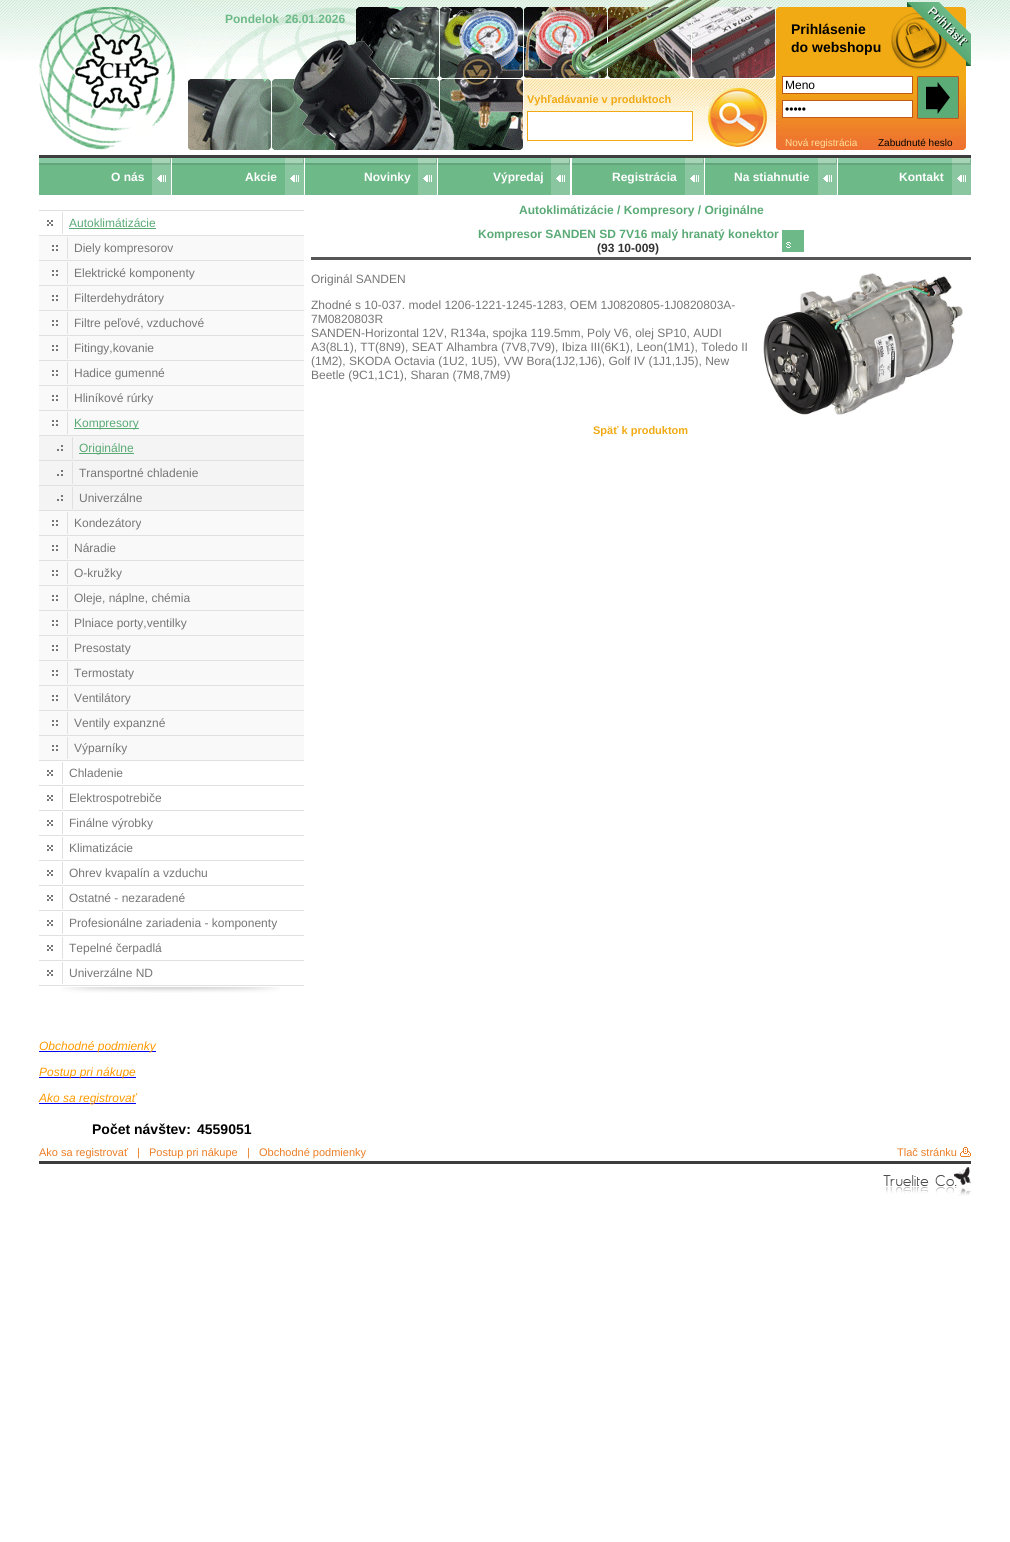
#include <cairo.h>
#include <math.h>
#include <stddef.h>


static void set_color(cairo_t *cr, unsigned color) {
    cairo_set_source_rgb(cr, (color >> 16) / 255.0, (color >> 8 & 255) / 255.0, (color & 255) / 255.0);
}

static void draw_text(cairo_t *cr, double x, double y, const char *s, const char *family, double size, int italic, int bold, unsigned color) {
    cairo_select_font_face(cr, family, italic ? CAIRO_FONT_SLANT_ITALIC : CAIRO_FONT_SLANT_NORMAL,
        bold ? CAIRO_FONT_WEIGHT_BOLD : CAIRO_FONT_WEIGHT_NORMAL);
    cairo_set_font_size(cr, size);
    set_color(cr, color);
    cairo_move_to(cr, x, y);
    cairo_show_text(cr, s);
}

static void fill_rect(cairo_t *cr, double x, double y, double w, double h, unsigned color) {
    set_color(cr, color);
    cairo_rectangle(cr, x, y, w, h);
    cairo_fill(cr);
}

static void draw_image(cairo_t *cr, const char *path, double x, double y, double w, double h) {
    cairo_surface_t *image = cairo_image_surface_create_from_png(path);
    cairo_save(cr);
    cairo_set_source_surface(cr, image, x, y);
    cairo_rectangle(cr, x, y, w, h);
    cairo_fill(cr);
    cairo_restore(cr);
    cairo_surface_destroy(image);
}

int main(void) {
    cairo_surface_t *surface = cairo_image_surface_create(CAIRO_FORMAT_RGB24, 1010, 1542);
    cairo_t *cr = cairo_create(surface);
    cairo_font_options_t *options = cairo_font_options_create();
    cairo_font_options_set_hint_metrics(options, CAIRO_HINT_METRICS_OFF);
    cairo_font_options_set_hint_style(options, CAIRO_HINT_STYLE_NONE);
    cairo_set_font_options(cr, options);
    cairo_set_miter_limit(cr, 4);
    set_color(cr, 0xFFFFFF);
    cairo_paint(cr);
    draw_image(cr, "assets/img1.png", 0, 0, 1010, 61);
    draw_image(cr, "assets/img2.png", 39, 0, 149, 150);
    draw_image(cr, "assets/img3.png", 188, 0, 589, 150);
    draw_text(cr, 225, 23, "Pondelok", "Liberation Sans", 12, 0, 1, 0x6DB988);
    draw_text(cr, 285, 23, "26.01.2026", "Liberation Sans", 12, 0, 1, 0x6DB988);
    draw_text(cr, 527, 103, "Vyhľadávanie v produktoch", "Liberation Sans", 11, 0, 1, 0xF1AA13);
    set_color(cr, 0xFFFFFF);
    cairo_rectangle(cr, 527.5, 111.5, 165, 29);
    cairo_fill_preserve(cr);
    set_color(cr, 0xF1AA13);
    cairo_set_line_width(cr, 1);
    cairo_stroke(cr);
    draw_image(cr, "assets/img4.png", 707, 86, 62, 61);
    draw_image(cr, "assets/img5.png", 777, 0, 194, 150);
    draw_text(cr, 791, 34, "Prihlásenie", "Liberation Sans", 14, 0, 1, 0x000000);
    draw_text(cr, 791, 52, "do webshopu", "Liberation Sans", 14, 0, 1, 0x000000);
    set_color(cr, 0xFFFFFF);
    cairo_rectangle(cr, 782.5, 76.5, 130, 17);
    cairo_fill_preserve(cr);
    set_color(cr, 0xBE591A);
    cairo_stroke(cr);
    draw_text(cr, 785, 89, "Meno", "Liberation Sans", 12, 0, 0, 0x000000);
    draw_image(cr, "assets/img6.png", 917, 76, 42, 43);
    set_color(cr, 0xFFFFFF);
    cairo_rectangle(cr, 782.5, 100.5, 130, 17);
    cairo_fill_preserve(cr);
    set_color(cr, 0xBE591A);
    cairo_stroke(cr);
    draw_text(cr, 785, 113, "•••••", "Liberation Sans", 12, 0, 0, 0x000000);
    draw_text(cr, 785, 146, "Nová registrácia", "Liberation Sans", 10, 0, 0, 0xFFE09D);
    draw_text(cr, 878, 146, "Zabudnuté heslo", "Liberation Sans", 10, 0, 0, 0x000000);
    fill_rect(cr, 39, 155, 932, 3, 0x3D3D3D);
    draw_image(cr, "assets/img7.png", 39, 158, 113, 37);
    draw_text(cr, 111, 181, "O nás", "Liberation Sans", 12, 0, 1, 0xFFFFFF);
    draw_image(cr, "assets/img8.png", 152, 158, 19, 37);
    draw_image(cr, "assets/img7.png", 172, 158, 113, 37);
    draw_text(cr, 245, 181, "Akcie", "Liberation Sans", 12, 0, 1, 0xFFFFFF);
    draw_image(cr, "assets/img8.png", 285, 158, 19, 37);
    draw_image(cr, "assets/img7.png", 305, 158, 113, 37);
    draw_text(cr, 364, 181, "Novinky", "Liberation Sans", 12, 0, 1, 0xFFFFFF);
    draw_image(cr, "assets/img8.png", 418, 158, 19, 37);
    draw_image(cr, "assets/img7.png", 438, 158, 113, 37);
    draw_text(cr, 493, 181, "Výpredaj", "Liberation Sans", 12, 0, 1, 0xFFFFFF);
    draw_image(cr, "assets/img8.png", 551, 158, 19, 37);
    draw_image(cr, "assets/img7.png", 572, 158, 113, 37);
    draw_text(cr, 612, 181, "Registrácia", "Liberation Sans", 12, 0, 1, 0xFFFFFF);
    draw_image(cr, "assets/img8.png", 685, 158, 19, 37);
    draw_image(cr, "assets/img7.png", 705, 158, 113, 37);
    draw_text(cr, 734, 181, "Na stiahnutie", "Liberation Sans", 12, 0, 1, 0xFFFFFF);
    draw_image(cr, "assets/img8.png", 818, 158, 19, 37);
    draw_image(cr, "assets/img9.png", 838, 158, 114, 37);
    draw_text(cr, 899, 181, "Kontakt", "Liberation Sans", 12, 0, 1, 0xFFFFFF);
    draw_image(cr, "assets/img8.png", 952, 158, 19, 37);
    fill_rect(cr, 39, 210, 265, 1, 0xE0E0E0);
    fill_rect(cr, 39, 235, 265, 1, 0xE0E0E0);
    fill_rect(cr, 62, 212, 1, 22, 0xE0E0E0);
    draw_image(cr, "assets/img10.png", 47, 220, 6, 6);
    draw_text(cr, 69, 227, "Autoklimátizácie", "Liberation Sans", 12, 0, 0, 0x5AAA76);
    fill_rect(cr, 69, 228, 87, 1, 0x5AAA76);
    fill_rect(cr, 39, 236, 265, 24, 0xF9F9F9);
    fill_rect(cr, 39, 260, 265, 1, 0xE0E0E0);
    fill_rect(cr, 67, 237, 1, 22, 0xE0E0E0);
    draw_image(cr, "assets/img11.png", 52, 245, 6, 6);
    draw_text(cr, 74, 252, "Diely kompresorov", "Liberation Sans", 12, 0, 0, 0x767676);
    fill_rect(cr, 39, 261, 265, 24, 0xF9F9F9);
    fill_rect(cr, 39, 285, 265, 1, 0xE0E0E0);
    fill_rect(cr, 67, 262, 1, 22, 0xE0E0E0);
    draw_image(cr, "assets/img11.png", 52, 270, 6, 6);
    draw_text(cr, 74, 277, "Elektrické komponenty", "Liberation Sans", 12, 0, 0, 0x767676);
    fill_rect(cr, 39, 286, 265, 24, 0xF9F9F9);
    fill_rect(cr, 39, 310, 265, 1, 0xE0E0E0);
    fill_rect(cr, 67, 287, 1, 22, 0xE0E0E0);
    draw_image(cr, "assets/img11.png", 52, 295, 6, 6);
    draw_text(cr, 74, 302, "Filterdehydrátory", "Liberation Sans", 12, 0, 0, 0x767676);
    fill_rect(cr, 39, 311, 265, 24, 0xF9F9F9);
    fill_rect(cr, 39, 335, 265, 1, 0xE0E0E0);
    fill_rect(cr, 67, 312, 1, 22, 0xE0E0E0);
    draw_image(cr, "assets/img11.png", 52, 320, 6, 6);
    draw_text(cr, 74, 327, "Filtre peľové, vzduchové", "Liberation Sans", 12, 0, 0, 0x767676);
    fill_rect(cr, 39, 336, 265, 24, 0xF9F9F9);
    fill_rect(cr, 39, 360, 265, 1, 0xE0E0E0);
    fill_rect(cr, 67, 337, 1, 22, 0xE0E0E0);
    draw_image(cr, "assets/img11.png", 52, 345, 6, 6);
    draw_text(cr, 74, 352, "Fitingy,kovanie", "Liberation Sans", 12, 0, 0, 0x767676);
    fill_rect(cr, 39, 361, 265, 24, 0xF9F9F9);
    fill_rect(cr, 39, 385, 265, 1, 0xE0E0E0);
    fill_rect(cr, 67, 362, 1, 22, 0xE0E0E0);
    draw_image(cr, "assets/img11.png", 52, 370, 6, 6);
    draw_text(cr, 74, 377, "Hadice gumenné", "Liberation Sans", 12, 0, 0, 0x767676);
    fill_rect(cr, 39, 386, 265, 24, 0xF9F9F9);
    fill_rect(cr, 39, 410, 265, 1, 0xE0E0E0);
    fill_rect(cr, 67, 387, 1, 22, 0xE0E0E0);
    draw_image(cr, "assets/img11.png", 52, 395, 6, 6);
    draw_text(cr, 74, 402, "Hliníkové rúrky", "Liberation Sans", 12, 0, 0, 0x767676);
    fill_rect(cr, 39, 411, 265, 24, 0xF9F9F9);
    fill_rect(cr, 39, 435, 265, 1, 0xE0E0E0);
    fill_rect(cr, 67, 412, 1, 22, 0xE0E0E0);
    draw_image(cr, "assets/img11.png", 52, 420, 6, 6);
    fill_rect(cr, 74, 428, 65, 1, 0x5AAA76);
    draw_text(cr, 74, 427, "Kompresory", "Liberation Sans", 12, 0, 0, 0x5AAA76);
    fill_rect(cr, 39, 436, 265, 24, 0xF5F4F4);
    fill_rect(cr, 39, 460, 265, 1, 0xE0E0E0);
    fill_rect(cr, 72, 437, 1, 22, 0xE0E0E0);
    draw_image(cr, "assets/img12.png", 57, 445, 6, 6);
    fill_rect(cr, 79, 453, 55, 1, 0x5AAA76);
    draw_text(cr, 79, 452, "Originálne", "Liberation Sans", 12, 0, 0, 0x5AAA76);
    fill_rect(cr, 39, 461, 265, 24, 0xF5F4F4);
    fill_rect(cr, 39, 485, 265, 1, 0xE0E0E0);
    fill_rect(cr, 72, 462, 1, 22, 0xE0E0E0);
    draw_image(cr, "assets/img12.png", 57, 470, 6, 6);
    draw_text(cr, 79, 477, "Transportné chladenie", "Liberation Sans", 12, 0, 0, 0x767676);
    fill_rect(cr, 39, 486, 265, 24, 0xF5F4F4);
    fill_rect(cr, 39, 510, 265, 1, 0xE0E0E0);
    fill_rect(cr, 72, 487, 1, 22, 0xE0E0E0);
    draw_image(cr, "assets/img12.png", 57, 495, 6, 6);
    draw_text(cr, 79, 502, "Univerzálne", "Liberation Sans", 12, 0, 0, 0x767676);
    fill_rect(cr, 39, 511, 265, 24, 0xF9F9F9);
    fill_rect(cr, 39, 535, 265, 1, 0xE0E0E0);
    fill_rect(cr, 67, 512, 1, 22, 0xE0E0E0);
    draw_image(cr, "assets/img11.png", 52, 520, 6, 6);
    draw_text(cr, 74, 527, "Kondezátory", "Liberation Sans", 12, 0, 0, 0x767676);
    fill_rect(cr, 39, 536, 265, 24, 0xF9F9F9);
    fill_rect(cr, 39, 560, 265, 1, 0xE0E0E0);
    fill_rect(cr, 67, 537, 1, 22, 0xE0E0E0);
    draw_image(cr, "assets/img11.png", 52, 545, 6, 6);
    draw_text(cr, 74, 552, "Náradie", "Liberation Sans", 12, 0, 0, 0x767676);
    fill_rect(cr, 39, 561, 265, 24, 0xF9F9F9);
    fill_rect(cr, 39, 585, 265, 1, 0xE0E0E0);
    fill_rect(cr, 67, 562, 1, 22, 0xE0E0E0);
    draw_image(cr, "assets/img11.png", 52, 570, 6, 6);
    draw_text(cr, 74, 577, "O-kružky", "Liberation Sans", 12, 0, 0, 0x767676);
    fill_rect(cr, 39, 586, 265, 24, 0xF9F9F9);
    fill_rect(cr, 39, 610, 265, 1, 0xE0E0E0);
    fill_rect(cr, 67, 587, 1, 22, 0xE0E0E0);
    draw_image(cr, "assets/img11.png", 52, 595, 6, 6);
    draw_text(cr, 74, 602, "Oleje, náplne, chémia", "Liberation Sans", 12, 0, 0, 0x767676);
    fill_rect(cr, 39, 611, 265, 24, 0xF9F9F9);
    fill_rect(cr, 39, 635, 265, 1, 0xE0E0E0);
    fill_rect(cr, 67, 612, 1, 22, 0xE0E0E0);
    draw_image(cr, "assets/img11.png", 52, 620, 6, 6);
    draw_text(cr, 74, 627, "Plniace porty,ventilky", "Liberation Sans", 12, 0, 0, 0x767676);
    fill_rect(cr, 39, 636, 265, 24, 0xF9F9F9);
    fill_rect(cr, 39, 660, 265, 1, 0xE0E0E0);
    fill_rect(cr, 67, 637, 1, 22, 0xE0E0E0);
    draw_image(cr, "assets/img11.png", 52, 645, 6, 6);
    draw_text(cr, 74, 652, "Presostaty", "Liberation Sans", 12, 0, 0, 0x767676);
    fill_rect(cr, 39, 661, 265, 24, 0xF9F9F9);
    fill_rect(cr, 39, 685, 265, 1, 0xE0E0E0);
    fill_rect(cr, 67, 662, 1, 22, 0xE0E0E0);
    draw_image(cr, "assets/img11.png", 52, 670, 6, 6);
    draw_text(cr, 74, 677, "Termostaty", "Liberation Sans", 12, 0, 0, 0x767676);
    fill_rect(cr, 39, 686, 265, 24, 0xF9F9F9);
    fill_rect(cr, 39, 710, 265, 1, 0xE0E0E0);
    fill_rect(cr, 67, 687, 1, 22, 0xE0E0E0);
    draw_image(cr, "assets/img11.png", 52, 695, 6, 6);
    draw_text(cr, 74, 702, "Ventilátory", "Liberation Sans", 12, 0, 0, 0x767676);
    fill_rect(cr, 39, 711, 265, 24, 0xF9F9F9);
    fill_rect(cr, 39, 735, 265, 1, 0xE0E0E0);
    fill_rect(cr, 67, 712, 1, 22, 0xE0E0E0);
    draw_image(cr, "assets/img11.png", 52, 720, 6, 6);
    draw_text(cr, 74, 727, "Ventily expanzné", "Liberation Sans", 12, 0, 0, 0x767676);
    fill_rect(cr, 39, 736, 265, 24, 0xF9F9F9);
    fill_rect(cr, 39, 760, 265, 1, 0xE0E0E0);
    fill_rect(cr, 67, 737, 1, 22, 0xE0E0E0);
    draw_image(cr, "assets/img11.png", 52, 745, 6, 6);
    draw_text(cr, 74, 752, "Výparníky", "Liberation Sans", 12, 0, 0, 0x767676);
    fill_rect(cr, 39, 785, 265, 1, 0xE0E0E0);
    fill_rect(cr, 62, 762, 1, 22, 0xE0E0E0);
    draw_image(cr, "assets/img10.png", 47, 770, 6, 6);
    draw_text(cr, 69, 777, "Chladenie", "Liberation Sans", 12, 0, 0, 0x767676);
    fill_rect(cr, 39, 810, 265, 1, 0xE0E0E0);
    fill_rect(cr, 62, 787, 1, 22, 0xE0E0E0);
    draw_image(cr, "assets/img10.png", 47, 795, 6, 6);
    draw_text(cr, 69, 802, "Elektrospotrebiče", "Liberation Sans", 12, 0, 0, 0x767676);
    fill_rect(cr, 39, 835, 265, 1, 0xE0E0E0);
    fill_rect(cr, 62, 812, 1, 22, 0xE0E0E0);
    draw_image(cr, "assets/img10.png", 47, 820, 6, 6);
    draw_text(cr, 69, 827, "Finálne výrobky", "Liberation Sans", 12, 0, 0, 0x767676);
    fill_rect(cr, 39, 860, 265, 1, 0xE0E0E0);
    fill_rect(cr, 62, 837, 1, 22, 0xE0E0E0);
    draw_image(cr, "assets/img10.png", 47, 845, 6, 6);
    draw_text(cr, 69, 852, "Klimatizácie", "Liberation Sans", 12, 0, 0, 0x767676);
    fill_rect(cr, 39, 885, 265, 1, 0xE0E0E0);
    fill_rect(cr, 62, 862, 1, 22, 0xE0E0E0);
    draw_image(cr, "assets/img10.png", 47, 870, 6, 6);
    draw_text(cr, 69, 877, "Ohrev kvapalín a vzduchu", "Liberation Sans", 12, 0, 0, 0x767676);
    fill_rect(cr, 39, 910, 265, 1, 0xE0E0E0);
    fill_rect(cr, 62, 887, 1, 22, 0xE0E0E0);
    draw_image(cr, "assets/img10.png", 47, 895, 6, 6);
    draw_text(cr, 69, 902, "Ostatné - nezaradené", "Liberation Sans", 12, 0, 0, 0x767676);
    fill_rect(cr, 39, 935, 265, 1, 0xE0E0E0);
    fill_rect(cr, 62, 912, 1, 22, 0xE0E0E0);
    draw_image(cr, "assets/img10.png", 47, 920, 6, 6);
    draw_text(cr, 69, 927, "Profesionálne zariadenia - komponenty", "Liberation Sans", 12, 0, 0, 0x767676);
    fill_rect(cr, 39, 960, 265, 1, 0xE0E0E0);
    fill_rect(cr, 62, 937, 1, 22, 0xE0E0E0);
    draw_image(cr, "assets/img10.png", 47, 945, 6, 6);
    draw_text(cr, 69, 952, "Tepelné čerpadlá", "Liberation Sans", 12, 0, 0, 0x767676);
    fill_rect(cr, 39, 985, 265, 1, 0xE0E0E0);
    fill_rect(cr, 62, 962, 1, 22, 0xE0E0E0);
    draw_image(cr, "assets/img10.png", 47, 970, 6, 6);
    draw_text(cr, 69, 977, "Univerzálne ND", "Liberation Sans", 12, 0, 0, 0x767676);
    draw_image(cr, "assets/img13.png", 61, 987, 219, 6);
    fill_rect(cr, 39, 1051, 117, 1, 0x0000EE);
    draw_text(cr, 39, 1050, "Obchodné podmienky", "Liberation Sans", 12, 1, 0, 0xFF9900);
    fill_rect(cr, 39, 1077, 97, 1, 0x0000EE);
    draw_text(cr, 39, 1076, "Postup pri nákupe", "Liberation Sans", 12, 1, 0, 0xFF9900);
    fill_rect(cr, 39, 1103, 97, 1, 0x0000EE);
    draw_text(cr, 39, 1102, "Ako sa registrovať", "Liberation Sans", 12, 1, 0, 0xFF9900);
    draw_text(cr, 92, 1134, "Počet návštev:", "Liberation Sans", 14, 0, 1, 0x000000);
    draw_text(cr, 197, 1134, "4559051", "Liberation Sans", 14, 0, 1, 0x000000);
    draw_text(cr, 519, 214, "Autoklimátizácie / Kompresory / Originálne", "Liberation Sans", 12, 0, 1, 0x5AAA76);
    fill_rect(cr, 311, 257, 660, 3, 0x575757);
    draw_text(cr, 478, 238, "Kompresor SANDEN SD 7V16 malý hranatý konektor", "Liberation Sans", 12, 0, 1, 0x5AAA76);
    draw_text(cr, 597, 252, "(93 10-009)", "Liberation Sans", 12, 0, 1, 0x333333);
    draw_image(cr, "assets/img14.png", 782, 230, 22, 22);
    draw_text(cr, 311, 283, "Originál SANDEN", "Liberation Sans", 12, 0, 0, 0x767676);
    draw_text(cr, 311, 309, "Zhodné s 10-037. model 1206-1221-1245-1283, OEM 1J0820805-1J0820803A-", "Liberation Sans", 12, 0, 0, 0x767676);
    draw_text(cr, 311, 323, "7M0820803R", "Liberation Sans", 12, 0, 0, 0x767676);
    draw_text(cr, 311, 337, "SANDEN-Horizontal 12V, R134a, spojka 119.5mm, Poly V6, olej SP10, AUDI", "Liberation Sans", 12, 0, 0, 0x767676);
    draw_text(cr, 311, 351, "A3(8L1), TT(8N9), SEAT Alhambra (7V8,7V9), Ibiza III(6K1), Leon(1M1), Toledo II", "Liberation Sans", 12, 0, 0, 0x767676);
    draw_text(cr, 311, 365, "(1M2), SKODA Octavia (1U2, 1U5), VW Bora(1J2,1J6), Golf IV (1J1,1J5), New", "Liberation Sans", 12, 0, 0, 0x767676);
    draw_text(cr, 311, 379, "Beetle (9C1,1C1), Sharan (7M8,7M9)", "Liberation Sans", 12, 0, 0, 0x767676);
    draw_image(cr, "assets/img15.png", 763, 273, 200, 142);
    draw_text(cr, 593, 434, "Späť k produktom", "Liberation Sans", 11, 0, 1, 0xF1AA13);
    draw_text(cr, 39, 1156, "Ako sa registrovať", "Liberation Sans", 11, 0, 0, 0xEB7D25);
    draw_text(cr, 137, 1156, "|", "Liberation Sans", 11, 0, 0, 0xEB7D25);
    draw_text(cr, 149, 1156, "Postup pri nákupe", "Liberation Sans", 11, 0, 0, 0xEB7D25);
    draw_text(cr, 247, 1156, "|", "Liberation Sans", 11, 0, 0, 0xEB7D25);
    draw_text(cr, 259, 1156, "Obchodné podmienky", "Liberation Sans", 11, 0, 0, 0xEB7D25);
    draw_text(cr, 897, 1156, "Tlač stránku", "Liberation Sans", 11, 0, 0, 0xEB7D25);
    draw_image(cr, "assets/img16.png", 960, 1147, 11, 10);
    fill_rect(cr, 39, 1161, 932, 3, 0x3D3D3D);
    draw_image(cr, "assets/img17.png", 883, 1167, 88, 29);
    cairo_surface_write_to_png(surface, "output.png");
    cairo_font_options_destroy(options);
    cairo_destroy(cr);
    cairo_surface_destroy(surface);
    return 0;
}
